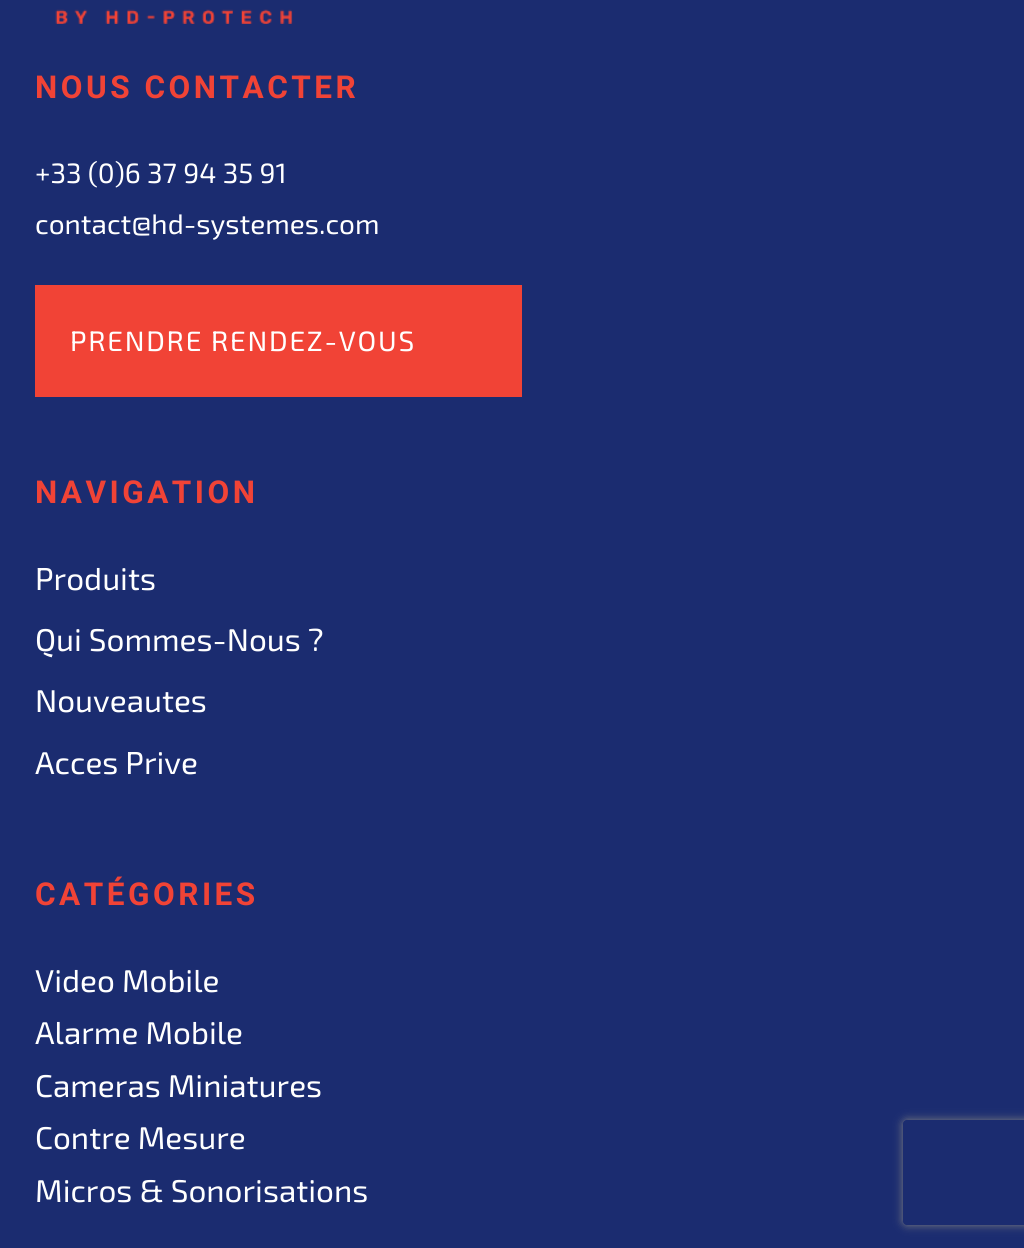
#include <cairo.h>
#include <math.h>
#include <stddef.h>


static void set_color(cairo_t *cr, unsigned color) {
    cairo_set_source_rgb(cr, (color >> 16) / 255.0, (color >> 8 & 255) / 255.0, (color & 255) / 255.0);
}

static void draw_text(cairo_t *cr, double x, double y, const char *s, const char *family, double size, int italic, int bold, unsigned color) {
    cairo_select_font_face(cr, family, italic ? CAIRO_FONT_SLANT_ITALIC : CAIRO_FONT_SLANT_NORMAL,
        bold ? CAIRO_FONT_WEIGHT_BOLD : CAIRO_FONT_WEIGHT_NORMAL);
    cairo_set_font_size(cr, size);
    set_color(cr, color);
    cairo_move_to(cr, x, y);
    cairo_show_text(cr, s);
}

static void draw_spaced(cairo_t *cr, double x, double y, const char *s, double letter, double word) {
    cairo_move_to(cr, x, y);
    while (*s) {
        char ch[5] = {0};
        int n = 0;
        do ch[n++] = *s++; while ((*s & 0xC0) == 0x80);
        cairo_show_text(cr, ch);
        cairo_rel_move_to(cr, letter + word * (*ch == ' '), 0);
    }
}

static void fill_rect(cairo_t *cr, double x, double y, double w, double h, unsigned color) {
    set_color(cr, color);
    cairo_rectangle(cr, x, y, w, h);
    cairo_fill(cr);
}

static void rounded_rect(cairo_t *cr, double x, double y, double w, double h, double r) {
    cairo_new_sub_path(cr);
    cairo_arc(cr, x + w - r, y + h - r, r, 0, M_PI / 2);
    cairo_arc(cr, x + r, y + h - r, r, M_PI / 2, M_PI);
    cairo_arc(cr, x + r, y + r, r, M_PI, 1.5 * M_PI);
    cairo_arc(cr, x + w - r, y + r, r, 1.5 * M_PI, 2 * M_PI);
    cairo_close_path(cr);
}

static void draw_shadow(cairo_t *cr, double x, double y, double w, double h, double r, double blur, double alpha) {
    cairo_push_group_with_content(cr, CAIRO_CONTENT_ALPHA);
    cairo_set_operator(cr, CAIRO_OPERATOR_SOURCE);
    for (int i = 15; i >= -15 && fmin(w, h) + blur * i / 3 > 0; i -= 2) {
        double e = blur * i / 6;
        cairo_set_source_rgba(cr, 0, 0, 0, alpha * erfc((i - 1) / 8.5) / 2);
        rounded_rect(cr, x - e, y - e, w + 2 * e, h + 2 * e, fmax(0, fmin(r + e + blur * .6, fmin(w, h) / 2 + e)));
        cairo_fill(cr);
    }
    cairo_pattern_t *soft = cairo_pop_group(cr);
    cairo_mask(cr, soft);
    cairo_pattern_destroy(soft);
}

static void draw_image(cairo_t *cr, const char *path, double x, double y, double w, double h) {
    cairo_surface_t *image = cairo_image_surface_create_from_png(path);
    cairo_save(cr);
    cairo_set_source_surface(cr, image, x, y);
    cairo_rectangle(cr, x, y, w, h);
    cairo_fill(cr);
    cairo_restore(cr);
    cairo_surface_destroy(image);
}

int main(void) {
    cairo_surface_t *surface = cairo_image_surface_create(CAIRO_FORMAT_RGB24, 1024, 1248);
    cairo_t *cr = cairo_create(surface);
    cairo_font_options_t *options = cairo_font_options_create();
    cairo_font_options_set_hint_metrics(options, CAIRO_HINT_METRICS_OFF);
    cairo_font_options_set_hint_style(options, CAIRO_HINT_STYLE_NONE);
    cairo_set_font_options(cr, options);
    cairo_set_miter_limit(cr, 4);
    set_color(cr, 0x1B2C70);
    cairo_paint(cr);
    draw_image(cr, "assets/img1.png", 55, 9, 238, 15);
    cairo_select_font_face(cr, "Roboto", CAIRO_FONT_SLANT_NORMAL, CAIRO_FONT_WEIGHT_BOLD);
    cairo_set_font_size(cr, 31.5);
    set_color(cr, 0xF14336);
    draw_spaced(cr, 35, 98, "NOUS CONTACTER", 3.5, 0);
    draw_text(cr, 35, 183, "+33 (0)6 37 94 35 91", "Exo 2", 28, 0, 0, 0xFFFFFF);
    draw_text(cr, 35, 234, "contact@hd-systemes.com", "Exo 2", 28, 0, 0, 0xFFFFFF);
    fill_rect(cr, 35, 285, 487, 112, 0xF14336);
    set_color(cr, 0xFFFFFF);
    draw_spaced(cr, 70, 351, "PRENDRE RENDEZ-VOUS", 1.75, 0);
    cairo_select_font_face(cr, "Roboto", CAIRO_FONT_SLANT_NORMAL, CAIRO_FONT_WEIGHT_BOLD);
    cairo_set_font_size(cr, 31.5);
    set_color(cr, 0xF14336);
    draw_spaced(cr, 35, 503, "NAVIGATION", 3.5, 0);
    draw_text(cr, 35, 590, "Produits", "Exo 2", 31.5, 0, 0, 0xFFFFFF);
    draw_text(cr, 35, 651, "Qui Sommes-Nous ?", "Exo 2", 31.5, 0, 0, 0xFFFFFF);
    draw_text(cr, 35, 712, "Nouveautes", "Exo 2", 31.5, 0, 0, 0xFFFFFF);
    draw_text(cr, 35, 774, "Acces Prive", "Exo 2", 31.5, 0, 0, 0xFFFFFF);
    cairo_select_font_face(cr, "Roboto", CAIRO_FONT_SLANT_NORMAL, CAIRO_FONT_WEIGHT_BOLD);
    set_color(cr, 0xF14336);
    draw_spaced(cr, 35, 905, "CATÉGORIES", 3.5, 0);
    draw_text(cr, 35, 992, "Video Mobile", "Exo 2", 31.5, 0, 0, 0xFFFFFF);
    draw_text(cr, 35, 1044, "Alarme Mobile", "Exo 2", 31.5, 0, 0, 0xFFFFFF);
    draw_text(cr, 35, 1097, "Cameras Miniatures", "Exo 2", 31.5, 0, 0, 0xFFFFFF);
    draw_text(cr, 35, 1149, "Contre Mesure", "Exo 2", 31.5, 0, 0, 0xFFFFFF);
    draw_text(cr, 35, 1202, "Micros & Sonorisations", "Exo 2", 31.5, 0, 0, 0xFFFFFF);
    cairo_save(cr);
    cairo_set_fill_rule(cr, CAIRO_FILL_RULE_EVEN_ODD);
    cairo_new_path(cr);
    cairo_move_to(cr, 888, 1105);
    cairo_line_to(cr, 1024, 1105);
    cairo_line_to(cr, 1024, 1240);
    cairo_line_to(cr, 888, 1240);
    cairo_close_path(cr);
    cairo_move_to(cr, 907, 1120);
    cairo_line_to(cr, 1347, 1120);
    cairo_curve_to(cr, 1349, 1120, 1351, 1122, 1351, 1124);
    cairo_line_to(cr, 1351, 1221);
    cairo_curve_to(cr, 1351, 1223, 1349, 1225, 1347, 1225);
    cairo_line_to(cr, 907, 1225);
    cairo_curve_to(cr, 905, 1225, 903, 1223, 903, 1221);
    cairo_line_to(cr, 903, 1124);
    cairo_curve_to(cr, 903, 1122, 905, 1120, 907, 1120);
    cairo_close_path(cr);
    cairo_clip(cr);
    set_color(cr, 0x808080);
    draw_shadow(cr, 903, 1120, 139, 105, 4, 4.5, 1);
    cairo_restore(cr);
    cairo_surface_write_to_png(surface, "output.png");
    cairo_font_options_destroy(options);
    cairo_destroy(cr);
    cairo_surface_destroy(surface);
    return 0;
}
